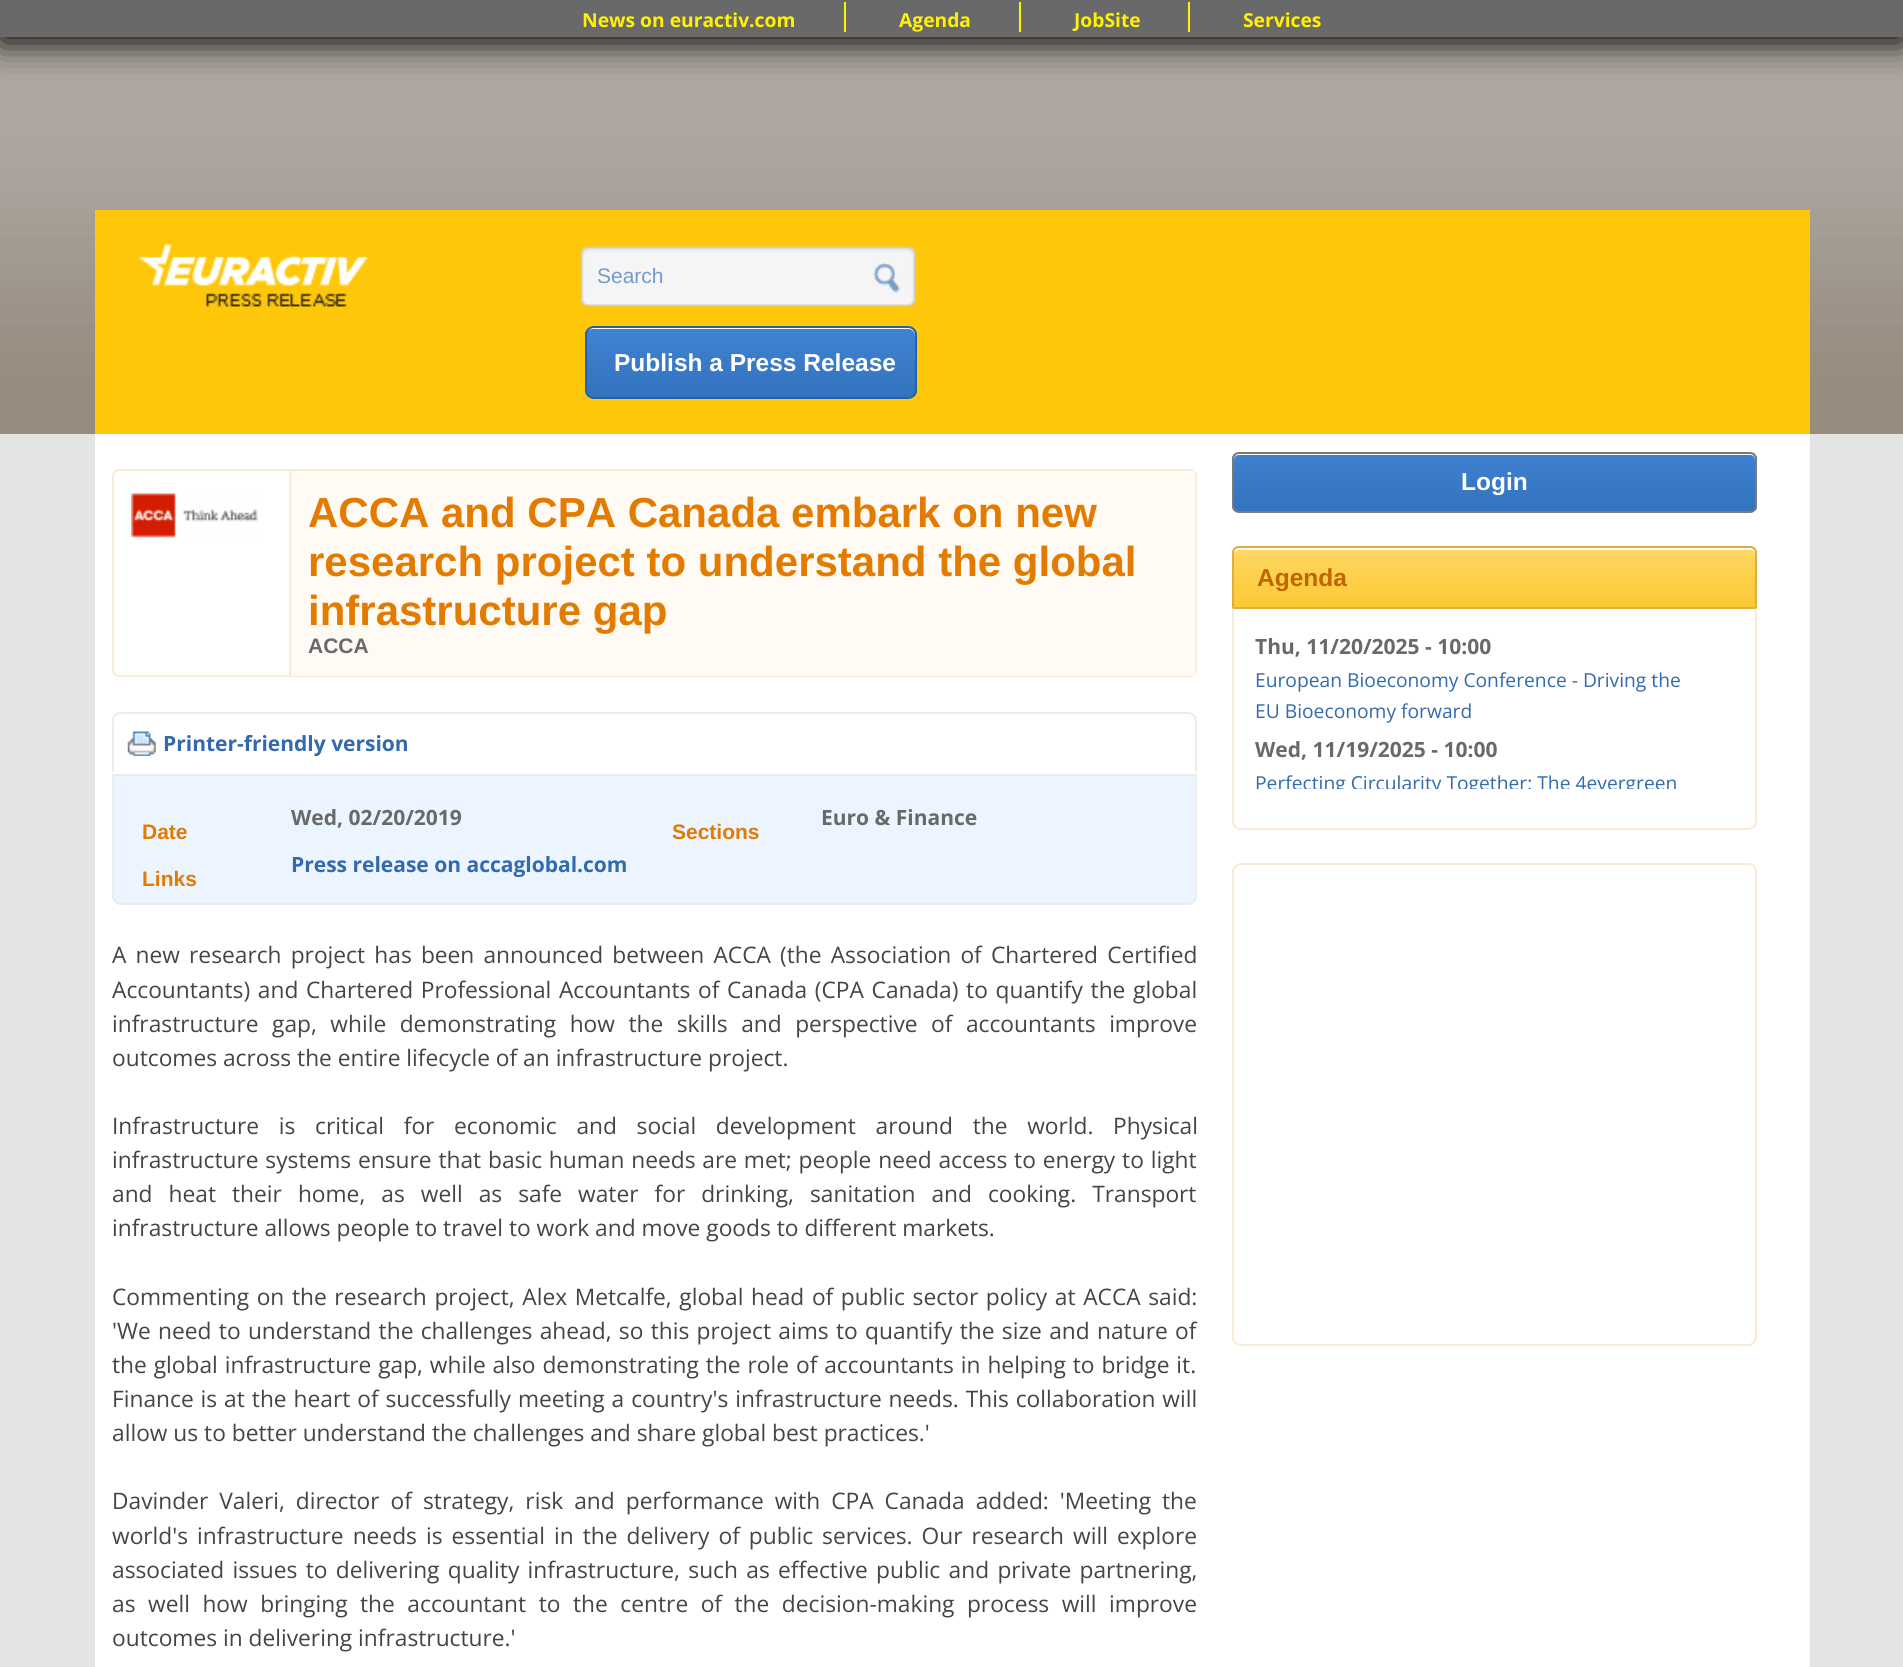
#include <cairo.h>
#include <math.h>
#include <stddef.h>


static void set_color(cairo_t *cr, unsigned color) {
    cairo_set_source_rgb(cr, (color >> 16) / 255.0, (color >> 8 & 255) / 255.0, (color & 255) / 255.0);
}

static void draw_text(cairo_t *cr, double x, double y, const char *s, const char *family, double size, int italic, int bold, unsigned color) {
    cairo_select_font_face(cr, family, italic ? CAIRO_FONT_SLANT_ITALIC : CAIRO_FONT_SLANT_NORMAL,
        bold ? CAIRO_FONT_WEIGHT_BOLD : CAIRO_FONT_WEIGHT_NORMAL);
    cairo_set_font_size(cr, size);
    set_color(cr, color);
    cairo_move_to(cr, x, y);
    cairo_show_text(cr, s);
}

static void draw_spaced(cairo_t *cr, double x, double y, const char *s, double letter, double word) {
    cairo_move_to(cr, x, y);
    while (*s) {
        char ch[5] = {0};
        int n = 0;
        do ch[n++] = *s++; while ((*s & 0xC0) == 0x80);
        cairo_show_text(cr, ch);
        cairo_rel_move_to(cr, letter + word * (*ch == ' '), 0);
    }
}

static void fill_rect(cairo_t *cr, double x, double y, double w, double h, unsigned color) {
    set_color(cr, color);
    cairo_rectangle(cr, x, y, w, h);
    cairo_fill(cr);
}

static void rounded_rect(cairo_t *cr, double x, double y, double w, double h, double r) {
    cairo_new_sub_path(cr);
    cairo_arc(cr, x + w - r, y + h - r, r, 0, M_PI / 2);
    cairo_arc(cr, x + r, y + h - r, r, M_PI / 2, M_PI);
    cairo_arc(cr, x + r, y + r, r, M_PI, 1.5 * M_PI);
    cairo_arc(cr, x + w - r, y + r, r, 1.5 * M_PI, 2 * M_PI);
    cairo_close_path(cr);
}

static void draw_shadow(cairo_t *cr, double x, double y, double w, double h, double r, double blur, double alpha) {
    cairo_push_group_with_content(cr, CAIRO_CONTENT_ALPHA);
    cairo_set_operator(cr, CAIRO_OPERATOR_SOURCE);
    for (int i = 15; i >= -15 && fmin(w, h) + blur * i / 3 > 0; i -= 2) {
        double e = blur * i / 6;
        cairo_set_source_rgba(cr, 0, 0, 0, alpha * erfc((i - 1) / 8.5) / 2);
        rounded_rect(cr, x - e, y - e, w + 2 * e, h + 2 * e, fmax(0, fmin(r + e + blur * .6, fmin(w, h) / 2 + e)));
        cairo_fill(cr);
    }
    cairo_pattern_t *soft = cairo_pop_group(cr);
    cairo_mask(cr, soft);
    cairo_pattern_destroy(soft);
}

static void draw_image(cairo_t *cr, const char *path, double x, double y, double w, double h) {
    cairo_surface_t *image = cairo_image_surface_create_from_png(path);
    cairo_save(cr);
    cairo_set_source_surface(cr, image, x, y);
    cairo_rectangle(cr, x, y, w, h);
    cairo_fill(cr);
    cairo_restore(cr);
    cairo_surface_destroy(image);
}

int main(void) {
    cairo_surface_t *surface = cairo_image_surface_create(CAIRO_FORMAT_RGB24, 1903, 1667);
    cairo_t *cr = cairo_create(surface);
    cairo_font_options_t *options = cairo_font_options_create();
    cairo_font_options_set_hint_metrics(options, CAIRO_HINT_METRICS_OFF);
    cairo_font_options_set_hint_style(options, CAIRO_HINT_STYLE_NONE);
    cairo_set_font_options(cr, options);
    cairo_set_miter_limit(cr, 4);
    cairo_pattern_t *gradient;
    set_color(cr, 0xFFFFFF);
    cairo_paint(cr);
    draw_image(cr, "assets/img1.png", 0, 37, 1903, 397);
    set_color(cr, 0x000000);
    draw_shadow(cr, 0, 5, 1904, 37, 0, 17.5, 1);
    fill_rect(cr, 0, 0, 1903, 37, 0x696969);
    draw_text(cr, 582, 27, "News on euractiv.com", "Open Sans", 19.25, 0, 1, 0xFEF200);
    fill_rect(cr, 844, 2, 2, 30, 0xFEF200);
    draw_text(cr, 899, 27, "Agenda", "Open Sans", 19.25, 0, 1, 0xFEF200);
    fill_rect(cr, 1019, 2, 2, 30, 0xFEF200);
    draw_text(cr, 1074, 27, "JobSite", "Open Sans", 19.25, 0, 1, 0xFEF200);
    fill_rect(cr, 1188, 2, 2, 30, 0xFEF200);
    draw_text(cr, 1243, 27, "Services", "Open Sans", 19.25, 0, 1, 0xFEF200);
    fill_rect(cr, 95, 210, 1715, 224, 0xFFC709);
    draw_image(cr, "assets/img2.png", 138, 243, 230, 64);
    draw_image(cr, "assets/img3.png", 579, 246, 338, 61);
    draw_text(cr, 597, 283, "Search", "Liberation Sans", 21, 0, 0, 0x749CCB);
    draw_image(cr, "assets/img4.png", 873, 262, 27, 31);
    cairo_save(cr);
    rounded_rect(cr, 585, 326, 332, 73, 9);
    cairo_clip(cr);
    gradient = cairo_pattern_create_linear(751, 327, 751, 397);
    cairo_pattern_add_color_stop_rgba(gradient, 0, 0.251, 0.514, 0.824, 1);
    cairo_pattern_add_color_stop_rgba(gradient, 1, 0.2, 0.451, 0.745, 1);
    cairo_set_source(cr, gradient);
    cairo_pattern_destroy(gradient);
    cairo_rectangle(cr, 585, 327, 332, 70);
    cairo_fill(cr);
    cairo_restore(cr);
    set_color(cr, 0xFFFFFF);
    cairo_new_path(cr);
    cairo_move_to(cr, 593, 329);
    cairo_line_to(cr, 908, 329);
    cairo_curve_to(cr, 912, 329, 915, 332, 915, 336);
    cairo_line_to(cr, 915, 334);
    cairo_curve_to(cr, 915, 330, 912, 327, 908, 327);
    cairo_line_to(cr, 593, 327);
    cairo_curve_to(cr, 589, 327, 586, 330, 586, 334);
    cairo_line_to(cr, 586, 336);
    cairo_curve_to(cr, 586, 332, 589, 329, 593, 329);
    cairo_close_path(cr);
    cairo_fill(cr);
    rounded_rect(cr, 586, 327, 330, 71, 8);
    set_color(cr, 0x2561A8);
    cairo_stroke(cr);
    draw_text(cr, 614, 371, "Publish a Press Release", "Liberation Sans", 24.5, 0, 1, 0xFFFFFF);
    fill_rect(cr, 0, 434, 1903, 1233, 0xE4E4E4);
    fill_rect(cr, 95, 434, 1715, 1233, 0xFFFFFF);
    rounded_rect(cr, 113, 470, 1083, 206, 6);
    set_color(cr, 0xF8EBD7);
    cairo_stroke(cr);
    draw_image(cr, "assets/img5.png", 131, 493, 127, 45);
    fill_rect(cr, 291, 471, 904, 205, 0xFFFAF3);
    fill_rect(cr, 289, 471, 2, 205, 0xF8EBD7);
    draw_text(cr, 308, 527, "ACCA and CPA Canada embark on new", "Liberation Sans", 42, 0, 1, 0xE27B00);
    draw_text(cr, 308, 576, "research project to understand the global", "Liberation Sans", 42, 0, 1, 0xE27B00);
    draw_text(cr, 308, 625, "infrastructure gap", "Liberation Sans", 42, 0, 1, 0xE27B00);
    draw_text(cr, 308, 653, "ACCA", "Liberation Sans", 21, 0, 1, 0x696969);
    set_color(cr, 0xECECEC);
    cairo_set_fill_rule(cr, CAIRO_FILL_RULE_EVEN_ODD);
    cairo_new_path(cr);
    cairo_move_to(cr, 121, 712);
    cairo_line_to(cr, 1188, 712);
    cairo_curve_to(cr, 1193, 712, 1197, 716, 1197, 721);
    cairo_line_to(cr, 1197, 772);
    cairo_line_to(cr, 112, 772);
    cairo_line_to(cr, 112, 721);
    cairo_curve_to(cr, 112, 716, 116, 712, 121, 712);
    cairo_close_path(cr);
    cairo_move_to(cr, 121, 714);
    cairo_line_to(cr, 1188, 714);
    cairo_curve_to(cr, 1192, 714, 1195, 717, 1195, 721);
    cairo_line_to(cr, 1195, 772);
    cairo_line_to(cr, 114, 772);
    cairo_line_to(cr, 114, 721);
    cairo_curve_to(cr, 114, 717, 117, 714, 121, 714);
    cairo_close_path(cr);
    cairo_fill(cr);
    draw_image(cr, "assets/img6.png", 127, 731, 29, 25);
    draw_text(cr, 163, 751, "Printer-friendly version", "Open Sans", 21, 0, 1, 0x326AAD);
    set_color(cr, 0xEBF4FF);
    cairo_new_path(cr);
    cairo_move_to(cr, 113, 775);
    cairo_line_to(cr, 1196, 775);
    cairo_line_to(cr, 1196, 896);
    cairo_curve_to(cr, 1196, 900.5, 1192.5, 904, 1188, 904);
    cairo_line_to(cr, 121, 904);
    cairo_curve_to(cr, 116.5, 904, 113, 900.5, 113, 896);
    cairo_close_path(cr);
    cairo_fill_preserve(cr);
    set_color(cr, 0xECECEC);
    cairo_stroke(cr);
    draw_text(cr, 291, 825, "Wed, 02/20/2019", "Open Sans", 21, 0, 1, 0x696969);
    draw_text(cr, 142, 839, "Date", "Liberation Sans", 21, 0, 1, 0xE27B00);
    draw_text(cr, 142, 886, "Links", "Liberation Sans", 21, 0, 1, 0xE27B00);
    draw_text(cr, 291, 872, "Press release on accaglobal.com", "Open Sans", 21, 0, 1, 0x326AAD);
    draw_text(cr, 821, 825, "Euro & Finance", "Open Sans", 21, 0, 1, 0x696969);
    draw_text(cr, 672, 839, "Sections", "Liberation Sans", 21, 0, 1, 0xE27B00);
    cairo_select_font_face(cr, "Open Sans", CAIRO_FONT_SLANT_NORMAL, CAIRO_FONT_WEIGHT_NORMAL);
    cairo_set_font_size(cr, 22.75);
    set_color(cr, 0x454545);
    draw_spaced(cr, 112, 963, "A new research project has been announced between ACCA (the Association of Chartered Certified", 0, 3.25);
    draw_spaced(cr, 112, 998, "Accountants) and Chartered Professional Accountants of Canada (CPA Canada) to quantify the global", 0, 1.75);
    draw_spaced(cr, 112, 1032, "infrastructure gap, while demonstrating how the skills and perspective of accountants improve", 0, 7.6);
    draw_text(cr, 112, 1066, "outcomes across the entire lifecycle of an infrastructure project.", "Open Sans", 22.75, 0, 0, 0x454545);
    draw_spaced(cr, 112, 1134, "Infrastructure is critical for economic and social development around the world. Physical", 0, 13.75);
    draw_spaced(cr, 112, 1168, "infrastructure systems ensure that basic human needs are met; people need access to energy to light", 0, 0.9);
    draw_spaced(cr, 112, 1202, "and heat their home, as well as safe water for drinking, sanitation and cooking. Transport", 0, 10.1);
    draw_text(cr, 112, 1236, "infrastructure allows people to travel to work and move goods to different markets.", "Open Sans", 22.75, 0, 0, 0x454545);
    draw_spaced(cr, 112, 1305, "Commenting on the research project, Alex Metcalfe, global head of public sector policy at ACCA said:", 0, 1.7);
    draw_spaced(cr, 112, 1339, "'We need to understand the challenges ahead, so this project aims to quantify the size and nature of", 0, 1.4);
    draw_spaced(cr, 112, 1373, "the global infrastructure gap, while also demonstrating the role of accountants in helping to bridge it.", 0, 1);
    draw_spaced(cr, 112, 1407, "Finance is at the heart of successfully meeting a country's infrastructure needs. This collaboration will", 0, 1);
    draw_text(cr, 112, 1441, "allow us to better understand the challenges and share global best practices.'", "Open Sans", 22.75, 0, 0, 0x454545);
    draw_spaced(cr, 112, 1509, "Davinder Valeri, director of strategy, risk and performance with CPA Canada added: 'Meeting the", 0, 5.1);
    draw_spaced(cr, 112, 1544, "world's infrastructure needs is essential in the delivery of public services. Our research will explore", 0, 3.1);
    draw_spaced(cr, 112, 1578, "associated issues to delivering quality infrastructure, such as effective public and private partnering,", 0, 2.4);
    draw_spaced(cr, 112, 1612, "as well how bringing the accountant to the centre of the decision-making process will improve", 0, 6.6);
    draw_text(cr, 112, 1646, "outcomes in delivering infrastructure.'", "Open Sans", 22.75, 0, 0, 0x454545);
    cairo_save(cr);
    cairo_set_fill_rule(cr, CAIRO_FILL_RULE_WINDING);
    rounded_rect(cr, 1232, 452, 525, 61, 7);
    cairo_clip(cr);
    gradient = cairo_pattern_create_linear(1495, 453, 1495, 511);
    cairo_pattern_add_color_stop_rgba(gradient, 0, 0.247, 0.506, 0.816, 1);
    cairo_pattern_add_color_stop_rgba(gradient, 1, 0.2, 0.451, 0.745, 1);
    cairo_set_source(cr, gradient);
    cairo_pattern_destroy(gradient);
    cairo_rectangle(cr, 1232, 453, 525, 58);
    cairo_fill(cr);
    cairo_restore(cr);
    set_color(cr, 0xFFFFFF);
    cairo_set_fill_rule(cr, CAIRO_FILL_RULE_WINDING);
    cairo_new_path(cr);
    cairo_move_to(cr, 1239, 455);
    cairo_line_to(cr, 1750, 455);
    cairo_curve_to(cr, 1753, 455, 1755, 457, 1755, 460);
    cairo_line_to(cr, 1755, 458);
    cairo_curve_to(cr, 1755, 455, 1753, 453, 1750, 453);
    cairo_line_to(cr, 1239, 453);
    cairo_curve_to(cr, 1236, 453, 1234, 455, 1234, 458);
    cairo_line_to(cr, 1234, 460);
    cairo_curve_to(cr, 1234, 457, 1236, 455, 1239, 455);
    cairo_close_path(cr);
    cairo_fill(cr);
    rounded_rect(cr, 1233, 453, 523, 59, 6);
    set_color(cr, 0x7A7A7A);
    cairo_stroke(cr);
    draw_text(cr, 1461, 490, "Login", "Liberation Sans", 24.5, 0, 1, 0xFFFFFF);
    rounded_rect(cr, 1233, 547, 523, 282, 8);
    set_color(cr, 0xF8EBD7);
    cairo_stroke(cr);
    cairo_save(cr);
    cairo_new_path(cr);
    cairo_move_to(cr, 1239, 546);
    cairo_line_to(cr, 1750, 546);
    cairo_curve_to(cr, 1754, 546, 1757, 549, 1757, 553);
    cairo_line_to(cr, 1757, 607);
    cairo_curve_to(cr, 1757, 608, 1756, 609, 1755, 609);
    cairo_line_to(cr, 1234, 609);
    cairo_curve_to(cr, 1233, 609, 1232, 608, 1232, 607);
    cairo_line_to(cr, 1232, 553);
    cairo_curve_to(cr, 1232, 549, 1235, 546, 1239, 546);
    cairo_close_path(cr);
    cairo_clip(cr);
    gradient = cairo_pattern_create_linear(1495, 548, 1495, 607);
    cairo_pattern_add_color_stop_rgba(gradient, 0, 1, 0.847, 0.392, 1);
    cairo_pattern_add_color_stop_rgba(gradient, 1, 0.988, 0.784, 0.2, 1);
    cairo_set_source(cr, gradient);
    cairo_pattern_destroy(gradient);
    cairo_rectangle(cr, 1232, 548, 525, 59);
    cairo_fill(cr);
    cairo_restore(cr);
    set_color(cr, 0xFFFFFF);
    cairo_new_path(cr);
    cairo_move_to(cr, 1239, 550);
    cairo_line_to(cr, 1750, 550);
    cairo_curve_to(cr, 1753, 550, 1755, 552, 1755, 555);
    cairo_line_to(cr, 1755, 553);
    cairo_curve_to(cr, 1755, 550, 1753, 548, 1750, 548);
    cairo_line_to(cr, 1239, 548);
    cairo_curve_to(cr, 1236, 548, 1234, 550, 1234, 553);
    cairo_line_to(cr, 1234, 555);
    cairo_curve_to(cr, 1234, 552, 1236, 550, 1239, 550);
    cairo_close_path(cr);
    cairo_fill(cr);
    cairo_new_path(cr);
    cairo_move_to(cr, 1239, 547);
    cairo_line_to(cr, 1750, 547);
    cairo_curve_to(cr, 1753.5, 547, 1756, 549.5, 1756, 553);
    cairo_line_to(cr, 1756, 607);
    cairo_curve_to(cr, 1756, 607.5, 1755.5, 608, 1755, 608);
    cairo_line_to(cr, 1234, 608);
    cairo_curve_to(cr, 1233.5, 608, 1233, 607.5, 1233, 607);
    cairo_line_to(cr, 1233, 553);
    cairo_curve_to(cr, 1233, 549.5, 1235.5, 547, 1239, 547);
    cairo_close_path(cr);
    set_color(cr, 0xE1AD3F);
    cairo_stroke(cr);
    draw_text(cr, 1257, 586, "Agenda", "Liberation Sans", 24.5, 0, 1, 0xBE6700);
    draw_text(cr, 1255, 654, "Thu, 11/20/2025 - 10:00", "Open Sans", 21, 0, 1, 0x696969);
    draw_text(cr, 1255, 687, "European Bioeconomy Conference - Driving the", "Open Sans", 19.25, 0, 0, 0x326AAD);
    draw_text(cr, 1255, 718, "EU Bioeconomy forward", "Open Sans", 19.25, 0, 0, 0x326AAD);
    draw_text(cr, 1255, 757, "Wed, 11/19/2025 - 10:00", "Open Sans", 21, 0, 1, 0x696969);
    cairo_save(cr);
    cairo_rectangle(cr, 1255, 632, 479, 157);
    cairo_clip(cr);
    draw_text(cr, 1255, 790, "Perfecting Circularity Together: The 4evergreen", "Open Sans", 19.25, 0, 0, 0x326AAD);
    cairo_restore(cr);
    rounded_rect(cr, 1233, 864, 523, 481, 8);
    set_color(cr, 0xF8EBD7);
    cairo_stroke(cr);
    cairo_surface_write_to_png(surface, "output.png");
    cairo_font_options_destroy(options);
    cairo_destroy(cr);
    cairo_surface_destroy(surface);
    return 0;
}
